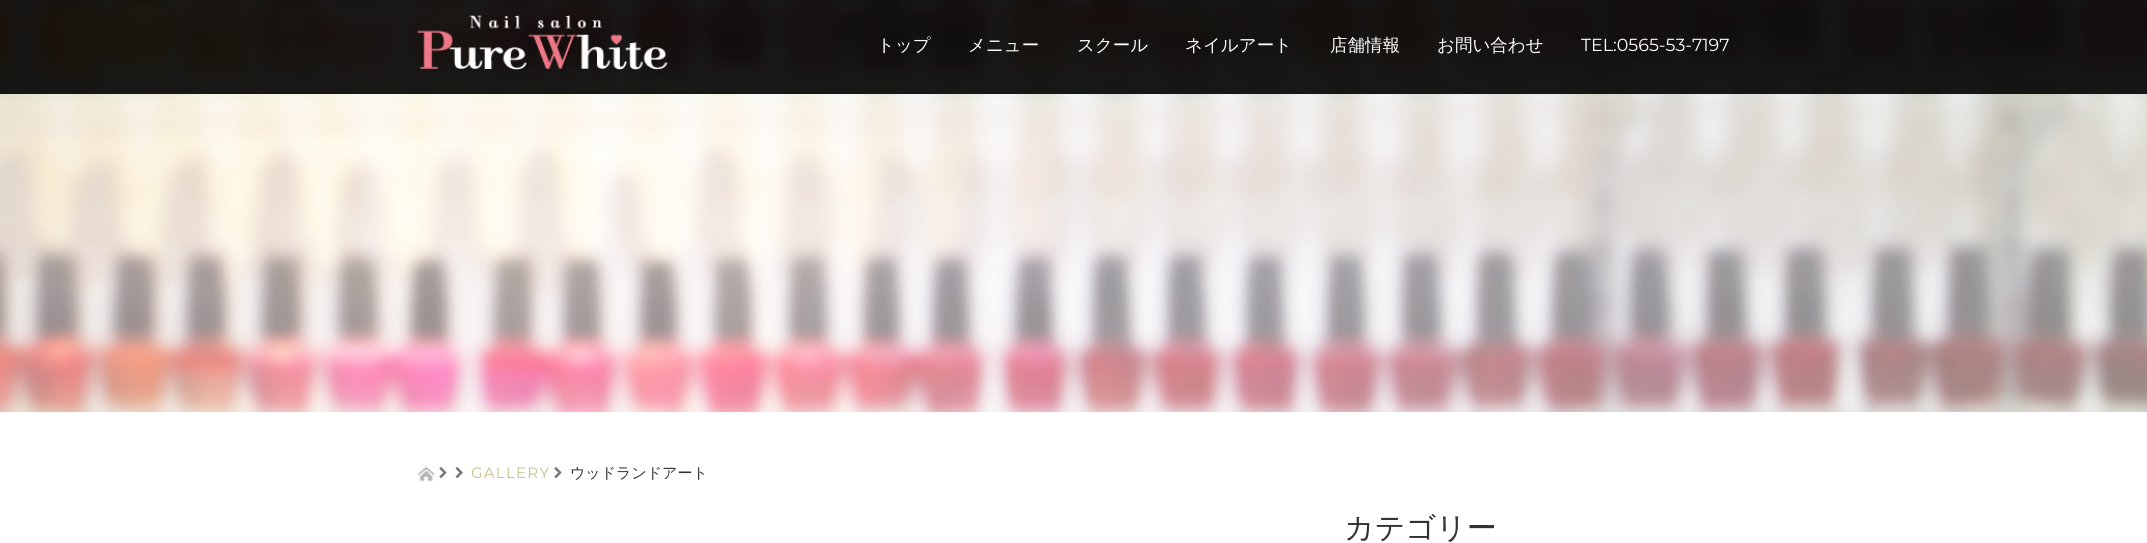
#include <cairo.h>
#include <math.h>
#include <stddef.h>


static void set_color(cairo_t *cr, unsigned color) {
    cairo_set_source_rgb(cr, (color >> 16) / 255.0, (color >> 8 & 255) / 255.0, (color & 255) / 255.0);
}

static void draw_text(cairo_t *cr, double x, double y, const char *s, const char *family, double size, int italic, int bold, unsigned color) {
    cairo_select_font_face(cr, family, italic ? CAIRO_FONT_SLANT_ITALIC : CAIRO_FONT_SLANT_NORMAL,
        bold ? CAIRO_FONT_WEIGHT_BOLD : CAIRO_FONT_WEIGHT_NORMAL);
    cairo_set_font_size(cr, size);
    set_color(cr, color);
    cairo_move_to(cr, x, y);
    cairo_show_text(cr, s);
}

static void draw_spaced(cairo_t *cr, double x, double y, const char *s, double letter, double word) {
    cairo_move_to(cr, x, y);
    while (*s) {
        char ch[5] = {0};
        int n = 0;
        do ch[n++] = *s++; while ((*s & 0xC0) == 0x80);
        cairo_show_text(cr, ch);
        cairo_rel_move_to(cr, letter + word * (*ch == ' '), 0);
    }
}

static void draw_image(cairo_t *cr, const char *path, double x, double y, double w, double h) {
    cairo_surface_t *image = cairo_image_surface_create_from_png(path);
    cairo_save(cr);
    cairo_set_source_surface(cr, image, x, y);
    cairo_rectangle(cr, x, y, w, h);
    cairo_fill(cr);
    cairo_restore(cr);
    cairo_surface_destroy(image);
}

int main(void) {
    cairo_surface_t *surface = cairo_image_surface_create(CAIRO_FORMAT_RGB24, 2147, 543);
    cairo_t *cr = cairo_create(surface);
    cairo_font_options_t *options = cairo_font_options_create();
    cairo_font_options_set_hint_metrics(options, CAIRO_HINT_METRICS_OFF);
    cairo_font_options_set_hint_style(options, CAIRO_HINT_STYLE_NONE);
    cairo_set_font_options(cr, options);
    cairo_set_miter_limit(cr, 4);
    set_color(cr, 0xFFFFFF);
    cairo_paint(cr);
    draw_image(cr, "assets/img1.png", 0, 0, 2147, 412);
    cairo_set_source_rgba(cr, 0, 0, 0, 0.9);
    cairo_rectangle(cr, 0, 0, 2147, 94);
    cairo_fill(cr);
    draw_image(cr, "assets/img2.png", 417, 15, 251, 55);
    draw_text(cr, 877, 51, "トップ", "WenQuanYi Zen Hei Medium", 17.5, 0, 0, 0xFFFFFF);
    draw_text(cr, 968, 51, "メニュー", "WenQuanYi Zen Hei Medium", 17.5, 0, 0, 0xFFFFFF);
    draw_text(cr, 1077, 51, "スクール", "WenQuanYi Zen Hei Medium", 17.5, 0, 0, 0xFFFFFF);
    draw_text(cr, 1185, 51, "ネイルアート", "WenQuanYi Zen Hei Medium", 17.5, 0, 0, 0xFFFFFF);
    draw_text(cr, 1330, 51, "店舗情報", "WenQuanYi Zen Hei Medium", 17.5, 0, 0, 0xFFFFFF);
    draw_text(cr, 1437, 51, "お問い合わせ", "WenQuanYi Zen Hei Medium", 17.5, 0, 0, 0xFFFFFF);
    draw_text(cr, 1581, 51, "TEL:0565-53-7197", "Montserrat Thin", 17.5, 0, 0, 0xFFFFFF);
    draw_image(cr, "assets/img3.png", 417, 466, 18, 16);
    draw_image(cr, "assets/img4.png", 439, 467, 8, 12);
    draw_image(cr, "assets/img5.png", 455, 467, 8, 12);
    cairo_set_font_size(cr, 15);
    set_color(cr, 0xC4BF8D);
    draw_spaced(cr, 471, 478, "GALLERY", 1.25, 0);
    draw_image(cr, "assets/img4.png", 554, 467, 8, 12);
    draw_text(cr, 570, 478, "ウッドランドアート", "WenQuanYi Zen Hei Medium", 15, 0, 0, 0x333333);
    draw_text(cr, 1344, 538, "カテゴリー", "WenQuanYi Zen Hei Medium", 30, 0, 0, 0x333333);
    cairo_surface_write_to_png(surface, "output.png");
    cairo_font_options_destroy(options);
    cairo_destroy(cr);
    cairo_surface_destroy(surface);
    return 0;
}
